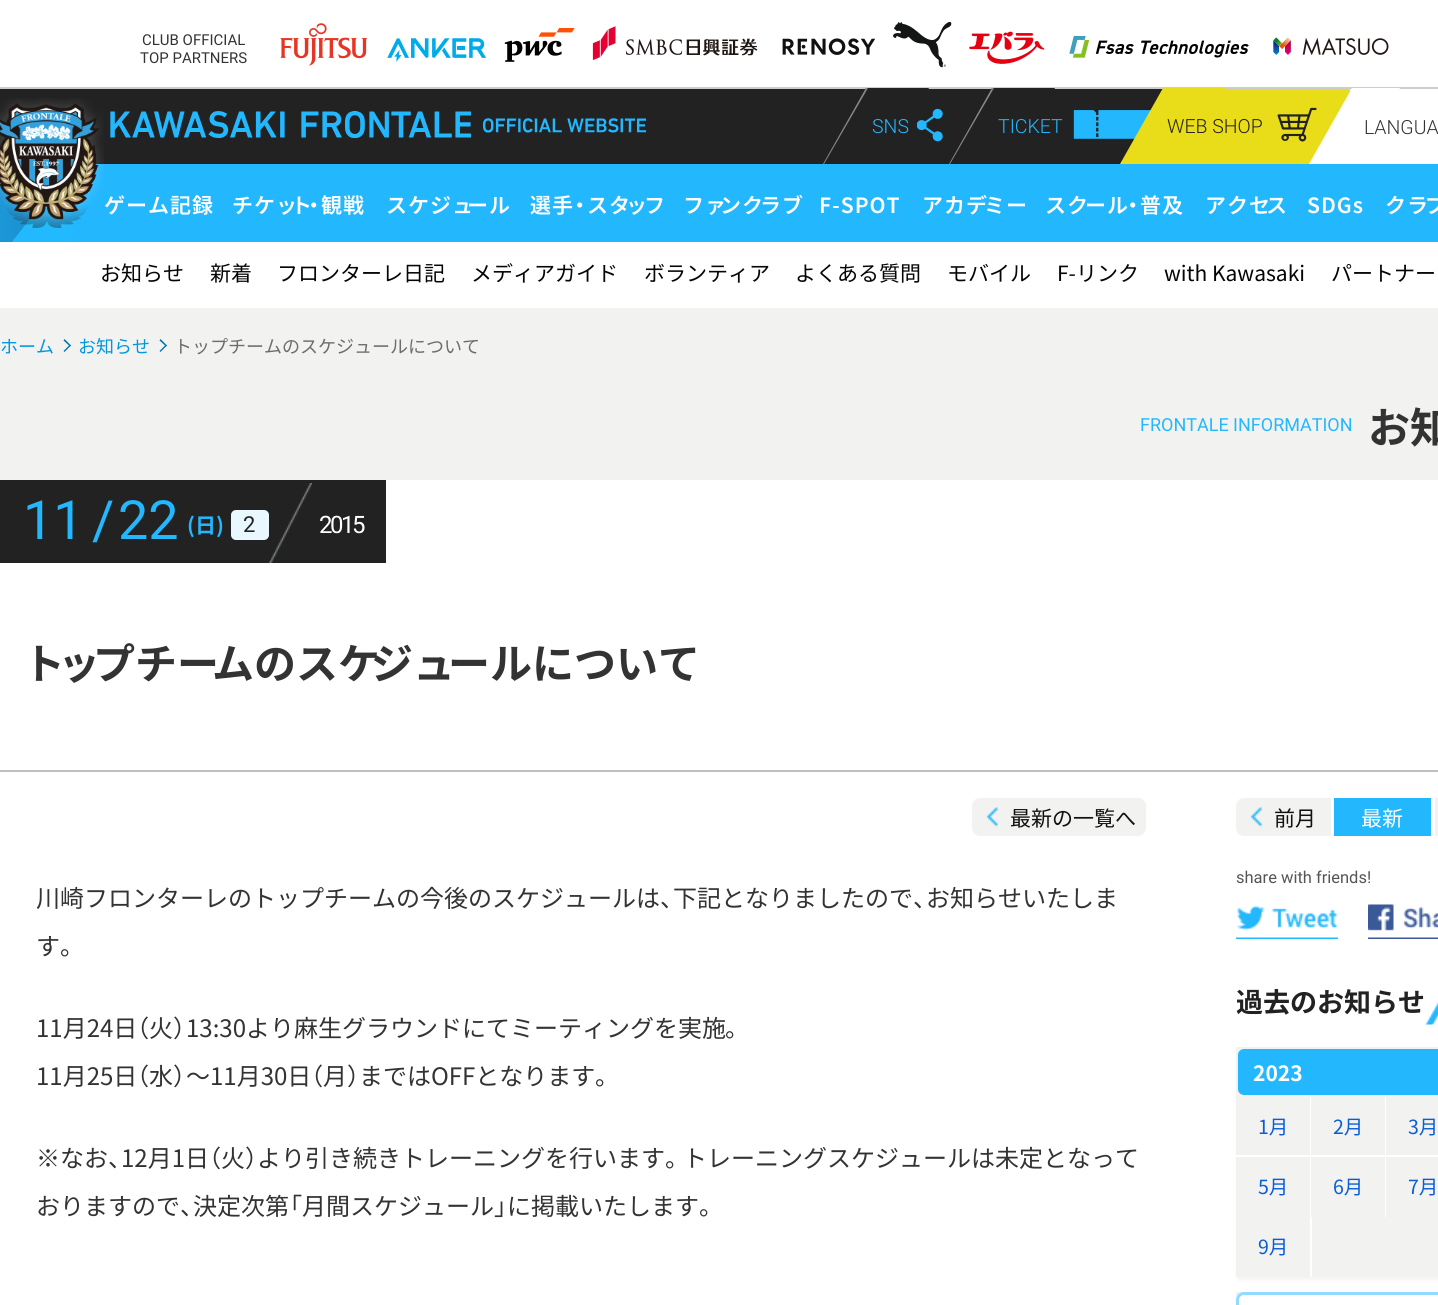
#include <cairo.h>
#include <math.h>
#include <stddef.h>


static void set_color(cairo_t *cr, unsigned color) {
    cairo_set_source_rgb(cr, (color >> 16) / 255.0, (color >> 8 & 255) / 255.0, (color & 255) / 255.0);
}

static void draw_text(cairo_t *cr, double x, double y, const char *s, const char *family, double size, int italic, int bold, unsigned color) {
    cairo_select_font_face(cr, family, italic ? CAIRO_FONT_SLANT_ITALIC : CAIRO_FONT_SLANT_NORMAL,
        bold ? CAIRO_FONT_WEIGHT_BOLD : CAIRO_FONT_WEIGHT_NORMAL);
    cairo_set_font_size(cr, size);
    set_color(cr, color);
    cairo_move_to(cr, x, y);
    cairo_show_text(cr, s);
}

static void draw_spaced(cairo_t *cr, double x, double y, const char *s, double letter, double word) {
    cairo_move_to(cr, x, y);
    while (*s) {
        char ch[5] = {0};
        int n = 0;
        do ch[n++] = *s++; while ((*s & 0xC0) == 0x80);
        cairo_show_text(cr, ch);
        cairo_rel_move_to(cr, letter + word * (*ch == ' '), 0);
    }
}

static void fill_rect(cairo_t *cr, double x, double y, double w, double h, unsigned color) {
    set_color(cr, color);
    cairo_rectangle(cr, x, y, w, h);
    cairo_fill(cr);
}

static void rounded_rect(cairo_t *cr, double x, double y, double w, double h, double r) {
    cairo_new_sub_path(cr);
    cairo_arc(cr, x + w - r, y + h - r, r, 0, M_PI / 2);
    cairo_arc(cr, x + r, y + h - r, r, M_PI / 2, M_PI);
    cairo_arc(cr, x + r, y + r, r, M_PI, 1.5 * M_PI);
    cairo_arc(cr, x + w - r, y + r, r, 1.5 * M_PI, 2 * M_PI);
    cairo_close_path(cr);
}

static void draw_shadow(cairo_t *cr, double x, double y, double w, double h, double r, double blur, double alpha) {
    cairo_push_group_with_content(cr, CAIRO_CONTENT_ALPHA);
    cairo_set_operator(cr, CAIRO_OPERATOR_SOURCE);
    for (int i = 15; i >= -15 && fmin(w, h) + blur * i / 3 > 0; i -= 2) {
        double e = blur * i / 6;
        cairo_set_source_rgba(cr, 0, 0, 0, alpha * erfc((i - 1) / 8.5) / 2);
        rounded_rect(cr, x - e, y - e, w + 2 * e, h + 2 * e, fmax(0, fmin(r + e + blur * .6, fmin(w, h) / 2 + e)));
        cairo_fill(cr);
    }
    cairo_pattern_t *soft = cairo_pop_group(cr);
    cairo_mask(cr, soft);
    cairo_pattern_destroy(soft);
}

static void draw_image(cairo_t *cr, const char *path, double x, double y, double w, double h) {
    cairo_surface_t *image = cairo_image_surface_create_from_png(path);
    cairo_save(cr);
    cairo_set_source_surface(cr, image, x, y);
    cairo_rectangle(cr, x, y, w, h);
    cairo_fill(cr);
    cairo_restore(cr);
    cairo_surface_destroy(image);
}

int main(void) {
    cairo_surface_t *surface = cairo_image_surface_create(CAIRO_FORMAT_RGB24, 1438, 1305);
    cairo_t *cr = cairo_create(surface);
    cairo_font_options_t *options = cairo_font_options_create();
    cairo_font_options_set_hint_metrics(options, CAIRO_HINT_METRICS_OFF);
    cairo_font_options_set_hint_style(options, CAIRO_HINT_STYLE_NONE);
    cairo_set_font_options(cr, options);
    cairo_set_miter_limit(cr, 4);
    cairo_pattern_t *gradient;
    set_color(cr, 0xFFFFFF);
    cairo_paint(cr);
    fill_rect(cr, 0, 87, 1438, 2, 0xCCCCCC);
    draw_text(cr, 142, 45, "CLUB OFFICIAL", "Roboto", 15, 0, 0, 0x333333);
    draw_text(cr, 140, 63, "TOP PARTNERS", "Roboto", 15, 0, 0, 0x333333);
    draw_image(cr, "assets/img1.png", 280, 23, 88, 43);
    draw_image(cr, "assets/img2.png", 387, 38, 100, 24);
    draw_image(cr, "assets/img3.png", 504, 28, 71, 34);
    draw_image(cr, "assets/img4.png", 592, 26, 166, 34);
    draw_image(cr, "assets/img5.png", 782, 38, 94, 17);
    draw_image(cr, "assets/img6.png", 893, 21, 59, 47);
    draw_image(cr, "assets/img7.png", 969, 31, 76, 33);
    draw_image(cr, "assets/img8.png", 1069, 36, 180, 22);
    draw_image(cr, "assets/img9.png", 1273, 37, 116, 19);
    fill_rect(cr, 0, 89, 866, 75, 0x222222);
    fill_rect(cr, 72, 164, 1366, 78, 0x23B7FE);
    gradient = cairo_pattern_create_linear(72, 203, -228, 203);
    cairo_pattern_add_color_stop_rgba(gradient, 0, 0.098, 0.549, 0.792, 1);
    cairo_pattern_add_color_stop_rgba(gradient, 1, 0.137, 0.718, 0.996, 1);
    cairo_set_source(cr, gradient);
    cairo_pattern_destroy(gradient);
    cairo_rectangle(cr, 0, 182, 31, 60);
    cairo_fill(cr);
    set_color(cr, 0x23B9FE);
    cairo_new_path(cr);
    cairo_move_to(cr, 72, 242);
    cairo_line_to(cr, 12, 242);
    cairo_line_to(cr, 72, 164);
    cairo_close_path(cr);
    cairo_fill(cr);
    draw_image(cr, "assets/img10.png", 0, 98, 104, 130);
    draw_image(cr, "assets/img11.png", 110, 111, 361, 27);
    draw_image(cr, "assets/img12.png", 483, 118, 164, 15);
    fill_rect(cr, 886, 89, 106, 75, 0x222222);
    cairo_new_path(cr);
    cairo_move_to(cr, 866, 88);
    cairo_line_to(cr, 929, 88);
    cairo_line_to(cr, 886, 164);
    cairo_line_to(cr, 823, 164);
    cairo_close_path(cr);
    cairo_fill(cr);
    set_color(cr, 0x888888);
    cairo_new_path(cr);
    cairo_move_to(cr, 866, 88);
    cairo_line_to(cr, 868, 88);
    cairo_line_to(cr, 824, 164);
    cairo_line_to(cr, 823, 164);
    cairo_close_path(cr);
    cairo_fill(cr);
    draw_text(cr, 872, 133, "SNS", "Roboto Light", 19.5, 0, 0, 0x23B7FE);
    draw_image(cr, "assets/img13.png", 917, 108, 26, 34);
    fill_rect(cr, 1012, 89, 151, 75, 0x222222);
    cairo_new_path(cr);
    cairo_move_to(cr, 992, 88);
    cairo_line_to(cr, 1055, 88);
    cairo_line_to(cr, 1012, 164);
    cairo_line_to(cr, 949, 164);
    cairo_close_path(cr);
    cairo_fill(cr);
    set_color(cr, 0x888888);
    cairo_new_path(cr);
    cairo_move_to(cr, 992, 88);
    cairo_line_to(cr, 994, 88);
    cairo_line_to(cr, 950, 164);
    cairo_line_to(cr, 949, 164);
    cairo_close_path(cr);
    cairo_fill(cr);
    draw_text(cr, 998, 133, "TICKET", "Roboto Light", 19.5, 0, 0, 0x23B7FE);
    draw_image(cr, "assets/img14.png", 1073, 110, 78, 29);
    fill_rect(cr, 1183, 89, 167, 75, 0xE9DD19);
    cairo_new_path(cr);
    cairo_move_to(cr, 1163, 88);
    cairo_line_to(cr, 1226, 88);
    cairo_line_to(cr, 1183, 164);
    cairo_line_to(cr, 1120, 164);
    cairo_close_path(cr);
    cairo_fill(cr);
    draw_text(cr, 1167, 133, "WEB SHOP", "Roboto Light", 19.5, 0, 0, 0x222222);
    draw_image(cr, "assets/img15.png", 1277, 107, 40, 35);
    set_color(cr, 0xFFFFFF);
    cairo_new_path(cr);
    cairo_move_to(cr, 1352, 88);
    cairo_line_to(cr, 1400, 88);
    cairo_line_to(cr, 1357, 164);
    cairo_line_to(cr, 1309, 164);
    cairo_close_path(cr);
    cairo_fill(cr);
    draw_text(cr, 1364, 134, "LANGUA", "Roboto Light", 19.5, 0, 0, 0x333333);
    cairo_select_font_face(cr, "Noto Sans JP SemiBold", CAIRO_FONT_SLANT_NORMAL, CAIRO_FONT_WEIGHT_NORMAL);
    cairo_set_font_size(cr, 21);
    set_color(cr, 0xFFFFFF);
    draw_spaced(cr, 104, 213, "ゲーム記録", 1, 0);
    draw_spaced(cr, 232, 213, "チケッ", 1, 0);
    draw_spaced(cr, 291, 213, "ト", 1, 0);
    cairo_select_font_face(cr, "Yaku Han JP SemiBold", CAIRO_FONT_SLANT_NORMAL, CAIRO_FONT_WEIGHT_NORMAL);
    draw_spaced(cr, 308, 213, "・", 1, 0);
    cairo_select_font_face(cr, "Noto Sans JP SemiBold", CAIRO_FONT_SLANT_NORMAL, CAIRO_FONT_WEIGHT_NORMAL);
    draw_spaced(cr, 321, 213, "観戦", 1, 0);
    draw_spaced(cr, 386, 213, "スケジュ", 1, 0);
    draw_spaced(cr, 467, 213, "ール", 1, 0);
    draw_spaced(cr, 530, 213, "選手", 1, 0);
    cairo_select_font_face(cr, "Yaku Han JP SemiBold", CAIRO_FONT_SLANT_NORMAL, CAIRO_FONT_WEIGHT_NORMAL);
    draw_spaced(cr, 574, 213, "・", 1, 0);
    cairo_select_font_face(cr, "Noto Sans JP SemiBold", CAIRO_FONT_SLANT_NORMAL, CAIRO_FONT_WEIGHT_NORMAL);
    draw_spaced(cr, 587, 213, "スタ", 1, 0);
    draw_spaced(cr, 626, 213, "ッ", 1, 0);
    draw_spaced(cr, 644, 213, "フ", 1, 0);
    draw_spaced(cr, 683, 213, "ファ", 1, 0);
    draw_spaced(cr, 720, 213, "ンク", 1, 0);
    draw_spaced(cr, 760, 213, "ラブ", 1, 0);
    draw_spaced(cr, 819, 213, "F-SPOT", 1, 0);
    draw_spaced(cr, 922, 213, "アカデ", 1, 0);
    draw_spaced(cr, 984, 213, "ミー", 1, 0);
    draw_spaced(cr, 1045, 213, "スク", 1, 0);
    draw_spaced(cr, 1085, 213, "ール", 1, 0);
    cairo_select_font_face(cr, "Yaku Han JP SemiBold", CAIRO_FONT_SLANT_NORMAL, CAIRO_FONT_WEIGHT_NORMAL);
    draw_spaced(cr, 1127, 213, "・", 1, 0);
    cairo_select_font_face(cr, "Noto Sans JP SemiBold", CAIRO_FONT_SLANT_NORMAL, CAIRO_FONT_WEIGHT_NORMAL);
    draw_spaced(cr, 1140, 213, "普及", 1, 0);
    draw_spaced(cr, 1205, 213, "アクセ", 1, 0);
    draw_spaced(cr, 1266, 213, "ス", 1, 0);
    draw_spaced(cr, 1307, 213, "SDGs", 1, 0);
    draw_spaced(cr, 1385, 213, "クラ", 1, 0);
    draw_spaced(cr, 1425, 213, "ブ", 1, 0);
    draw_text(cr, 100, 281, "お知らせ", "Noto Sans JP Thin", 21, 0, 0, 0x050505);
    draw_text(cr, 210, 281, "新着", "Noto Sans JP Thin", 21, 0, 0, 0x050505);
    draw_text(cr, 277, 281, "フロンターレ日記", "Noto Sans JP Thin", 21, 0, 0, 0x050505);
    draw_text(cr, 471, 281, "メディアガイド", "Noto Sans JP Thin", 21, 0, 0, 0x050505);
    draw_text(cr, 644, 281, "ボランティア", "Noto Sans JP Thin", 21, 0, 0, 0x050505);
    draw_text(cr, 795, 281, "よくある質問", "Noto Sans JP Thin", 21, 0, 0, 0x050505);
    draw_text(cr, 947, 281, "モバイル", "Noto Sans JP Thin", 21, 0, 0, 0x050505);
    draw_text(cr, 1057, 281, "F-リンク", "Noto Sans JP Thin", 21, 0, 0, 0x050505);
    draw_text(cr, 1164, 281, "with Kawasaki", "Noto Sans JP Thin", 21, 0, 0, 0x050505);
    draw_text(cr, 1331, 281, "パートナー", "Noto Sans JP Thin", 21, 0, 0, 0x050505);
    fill_rect(cr, 0, 308, 1438, 172, 0xF2F3F0);
    draw_text(cr, 0, 353, "ホーム", "Noto Sans JP Thin", 18, 0, 0, 0x0397DE);
    set_color(cr, 0x0676AB);
    cairo_new_path(cr);
    cairo_move_to(cr, 64.5, 339);
    cairo_line_to(cr, 71, 345.5);
    cairo_line_to(cr, 70, 346.5);
    cairo_line_to(cr, 63.5, 340.5);
    cairo_close_path(cr);
    cairo_fill(cr);
    cairo_new_path(cr);
    cairo_move_to(cr, 70, 344.5);
    cairo_line_to(cr, 71, 345.5);
    cairo_line_to(cr, 64.5, 352);
    cairo_line_to(cr, 63.5, 351);
    cairo_close_path(cr);
    cairo_fill(cr);
    draw_text(cr, 78, 353, "お知らせ", "Noto Sans JP Thin", 18, 0, 0, 0x0397DE);
    set_color(cr, 0x0676AB);
    cairo_new_path(cr);
    cairo_move_to(cr, 160.5, 339);
    cairo_line_to(cr, 167, 345.5);
    cairo_line_to(cr, 166, 346.5);
    cairo_line_to(cr, 159.5, 340.5);
    cairo_close_path(cr);
    cairo_fill(cr);
    cairo_new_path(cr);
    cairo_move_to(cr, 166, 344.5);
    cairo_line_to(cr, 167, 345.5);
    cairo_line_to(cr, 160.5, 352);
    cairo_line_to(cr, 159.5, 351);
    cairo_close_path(cr);
    cairo_fill(cr);
    draw_text(cr, 174, 353, "トップチームのスケジュールについて", "Noto Sans JP Thin", 18, 0, 0, 0x6C6E6C);
    draw_text(cr, 1140, 431, "FRONTALE INFORMATION", "Roboto", 18, 0, 0, 0x23B7FE);
    draw_text(cr, 1368, 443, "お知", "Noto Sans JP", 42, 0, 1, 0x333333);
    fill_rect(cr, 0, 480, 386, 83, 0x222222);
    draw_text(cr, 23, 539, "11", "Roboto", 54, 0, 0, 0x23B7FE);
    draw_text(cr, 92, 539, "/", "Roboto", 54, 0, 0, 0x23B7FE);
    draw_text(cr, 118, 539, "22", "Roboto", 54, 0, 0, 0x23B7FE);
    draw_text(cr, 187, 533, "(日)", "Noto Sans JP", 21, 0, 1, 0x23B7FE);
    set_color(cr, 0xE9F8FF);
    rounded_rect(cr, 231, 510, 38, 30, 5);
    cairo_fill(cr);
    draw_text(cr, 243, 532, "2", "Roboto", 22, 0, 0, 0x222222);
    draw_image(cr, "assets/img16.png", 268, 483, 44, 83);
    cairo_set_font_size(cr, 24);
    set_color(cr, 0xFFFFFF);
    draw_spaced(cr, 319, 533, "2015", -2.5, 0);
    fill_rect(cr, 0, 770, 1438, 2, 0xBFBFBF);
    draw_text(cr, 23, 679, "ト", "Noto Sans JP", 42, 0, 1, 0x333333);
    draw_text(cr, 58, 679, "ッ", "Noto Sans JP", 42, 0, 1, 0x333333);
    draw_text(cr, 93, 679, "プチー", "Noto Sans JP", 42, 0, 1, 0x333333);
    draw_text(cr, 212, 679, "ムのスケ", "Noto Sans JP", 42, 0, 1, 0x333333);
    draw_text(cr, 371, 679, "ジュ", "Noto Sans JP", 42, 0, 1, 0x333333);
    draw_text(cr, 448, 679, "ールについて", "Noto Sans JP", 42, 0, 1, 0x333333);
    set_color(cr, 0xF2F3F0);
    rounded_rect(cr, 972, 798, 174, 38, 8);
    cairo_fill(cr);
    draw_image(cr, "assets/img17.png", 987, 807, 12, 20);
    draw_text(cr, 1010, 826, "最新の一覧へ", "Noto Sans JP Thin", 21, 0, 0, 0x111111);
    draw_text(cr, 36, 907, "川崎フロンターレのトップチームの今後のスケジュールは", "Noto Sans JP Thin", 24, 0, 0, 0x333333);
    draw_text(cr, 660, 907, "、", "Yaku Han JP", 24, 0, 0, 0x333333);
    draw_text(cr, 673, 907, "下記となりましたので", "Noto Sans JP Thin", 24, 0, 0, 0x333333);
    draw_text(cr, 913, 907, "、", "Yaku Han JP", 24, 0, 0, 0x333333);
    draw_text(cr, 926, 907, "お知らせいたしま", "Noto Sans JP Thin", 24, 0, 0, 0x333333);
    draw_text(cr, 36, 955, "す", "Noto Sans JP Thin", 24, 0, 0, 0x333333);
    draw_text(cr, 60, 955, "。", "Yaku Han JP", 24, 0, 0, 0x333333);
    draw_text(cr, 36, 1037, "11月24日", "Noto Sans JP Thin", 24, 0, 0, 0x333333);
    draw_text(cr, 137, 1037, "（", "Yaku Han JP", 24, 0, 0, 0x333333);
    draw_text(cr, 149, 1037, "火", "Noto Sans JP Thin", 24, 0, 0, 0x333333);
    draw_text(cr, 173, 1037, "）", "Yaku Han JP", 24, 0, 0, 0x333333);
    draw_text(cr, 186, 1037, "13:30より麻生グラウンドにてミーティングを実施", "Noto Sans JP Thin", 24, 0, 0, 0x333333);
    draw_text(cr, 725, 1037, "。", "Yaku Han JP", 24, 0, 0, 0x333333);
    draw_text(cr, 36, 1085, "11月25日", "Noto Sans JP Thin", 24, 0, 0, 0x333333);
    draw_text(cr, 137, 1085, "（", "Yaku Han JP", 24, 0, 0, 0x333333);
    draw_text(cr, 149, 1085, "水", "Noto Sans JP Thin", 24, 0, 0, 0x333333);
    draw_text(cr, 173, 1085, "）", "Yaku Han JP", 24, 0, 0, 0x333333);
    draw_text(cr, 186, 1085, "～11月30日", "Noto Sans JP Thin", 24, 0, 0, 0x333333);
    draw_text(cr, 311, 1085, "（", "Yaku Han JP", 24, 0, 0, 0x333333);
    draw_text(cr, 323, 1085, "月", "Noto Sans JP Thin", 24, 0, 0, 0x333333);
    draw_text(cr, 347, 1085, "）", "Yaku Han JP", 24, 0, 0, 0x333333);
    draw_text(cr, 359, 1085, "まではOFFとなります", "Noto Sans JP Thin", 24, 0, 0, 0x333333);
    draw_text(cr, 595, 1085, "。", "Yaku Han JP", 24, 0, 0, 0x333333);
    draw_text(cr, 36, 1167, "※なお", "Noto Sans JP Thin", 24, 0, 0, 0x333333);
    draw_text(cr, 108, 1167, "、", "Yaku Han JP", 24, 0, 0, 0x333333);
    draw_text(cr, 121, 1167, "12月1日", "Noto Sans JP Thin", 24, 0, 0, 0x333333);
    draw_text(cr, 209, 1167, "（", "Yaku Han JP", 24, 0, 0, 0x333333);
    draw_text(cr, 221, 1167, "火", "Noto Sans JP Thin", 24, 0, 0, 0x333333);
    draw_text(cr, 245, 1167, "）", "Yaku Han JP", 24, 0, 0, 0x333333);
    draw_text(cr, 257, 1167, "より引き続きトレーニングを行います", "Noto Sans JP Thin", 24, 0, 0, 0x333333);
    draw_text(cr, 665, 1167, "。", "Yaku Han JP", 24, 0, 0, 0x333333);
    draw_text(cr, 683, 1167, "トレーニングスケジュールは未定となって", "Noto Sans JP Thin", 24, 0, 0, 0x333333);
    draw_text(cr, 36, 1215, "おりますので", "Noto Sans JP Thin", 24, 0, 0, 0x333333);
    draw_text(cr, 180, 1215, "、", "Yaku Han JP", 24, 0, 0, 0x333333);
    draw_text(cr, 193, 1215, "決定次第", "Noto Sans JP Thin", 24, 0, 0, 0x333333);
    draw_text(cr, 289, 1215, "「", "Yaku Han JP", 24, 0, 0, 0x333333);
    draw_text(cr, 302, 1215, "月間スケジュール", "Noto Sans JP Thin", 24, 0, 0, 0x333333);
    draw_text(cr, 494, 1215, "」", "Yaku Han JP", 24, 0, 0, 0x333333);
    draw_text(cr, 507, 1215, "に掲載いたします", "Noto Sans JP Thin", 24, 0, 0, 0x333333);
    draw_text(cr, 699, 1215, "。", "Yaku Han JP", 24, 0, 0, 0x333333);
    set_color(cr, 0xF2F3F0);
    cairo_new_path(cr);
    cairo_move_to(cr, 1244, 798);
    cairo_line_to(cr, 1332, 798);
    cairo_line_to(cr, 1332, 836);
    cairo_line_to(cr, 1244, 836);
    cairo_curve_to(cr, 1239.5, 836, 1236, 832.5, 1236, 828);
    cairo_line_to(cr, 1236, 806);
    cairo_curve_to(cr, 1236, 801.5, 1239.5, 798, 1244, 798);
    cairo_close_path(cr);
    cairo_fill(cr);
    draw_image(cr, "assets/img18.png", 1251, 807, 12, 20);
    fill_rect(cr, 1331, 798, 1, 38, 0xFFFFFF);
    draw_text(cr, 1274, 826, "前月", "Noto Sans JP Thin", 21, 0, 0, 0x111111);
    fill_rect(cr, 1334, 798, 97, 38, 0x23B7FE);
    draw_text(cr, 1361, 826, "最新", "Noto Sans JP Thin", 21, 0, 0, 0xFFFFFF);
    fill_rect(cr, 1435, 798, 3, 38, 0xF2F3F0);
    draw_text(cr, 1236, 883, "share with friends!", "Roboto", 16.5, 0, 0, 0x555555);
    draw_image(cr, "assets/img19.png", 1236, 905, 102, 34);
    draw_image(cr, "assets/img20.png", 1368, 904, 70, 35);
    draw_image(cr, "assets/img21.png", 1425, 1002, 13, 23);
    draw_text(cr, 1236, 1012, "過去のお知らせ", "Noto Sans JP", 27, 0, 1, 0x222222);
    set_color(cr, 0x000000);
    draw_shadow(cr, 1238, 1050, 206, 230, 0, 2, 0.05);
    fill_rect(cr, 1236, 1047, 202, 230, 0xF2F3F0);
    set_color(cr, 0x23B7FE);
    rounded_rect(cr, 1237, 1048, 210, 48, 7);
    cairo_fill_preserve(cr);
    set_color(cr, 0xF2F3F0);
    cairo_stroke(cr);
    draw_text(cr, 1253, 1081, "2023", "Noto Sans JP", 21, 0, 1, 0xFFFFFF);
    fill_rect(cr, 1310, 1097, 1, 120, 0xFFFFFF);
    fill_rect(cr, 1236, 1155, 75, 2, 0xFFFFFF);
    draw_text(cr, 1258, 1134, "1月", "Noto Sans JP Thin", 19.5, 0, 0, 0x0B5DD7);
    fill_rect(cr, 1385, 1097, 1, 120, 0xFFFFFF);
    fill_rect(cr, 1311, 1155, 127, 2, 0xFFFFFF);
    draw_text(cr, 1333, 1134, "2月", "Noto Sans JP Thin", 19.5, 0, 0, 0x0B5DD7);
    draw_text(cr, 1408, 1134, "3月", "Noto Sans JP Thin", 19.5, 0, 0, 0x0B5DD7);
    draw_text(cr, 1258, 1194, "5月", "Noto Sans JP Thin", 19.5, 0, 0, 0x0B5DD7);
    draw_text(cr, 1333, 1194, "6月", "Noto Sans JP Thin", 19.5, 0, 0, 0x0B5DD7);
    draw_text(cr, 1408, 1194, "7月", "Noto Sans JP Thin", 19.5, 0, 0, 0x0B5DD7);
    fill_rect(cr, 1310, 1217, 2, 60, 0xFFFFFF);
    draw_text(cr, 1258, 1254, "9月", "Noto Sans JP Thin", 19.5, 0, 0, 0x0B5DD7);
    fill_rect(cr, 1236, 1292, 8, 8, 0xF2F3F0);
    set_color(cr, 0xFFFFFF);
    rounded_rect(cr, 1237.5, 1293.5, 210, 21, 6.5);
    cairo_fill_preserve(cr);
    set_color(cr, 0x91DBFE);
    cairo_set_line_width(cr, 3);
    cairo_stroke(cr);
    cairo_surface_write_to_png(surface, "output.png");
    cairo_font_options_destroy(options);
    cairo_destroy(cr);
    cairo_surface_destroy(surface);
    return 0;
}
